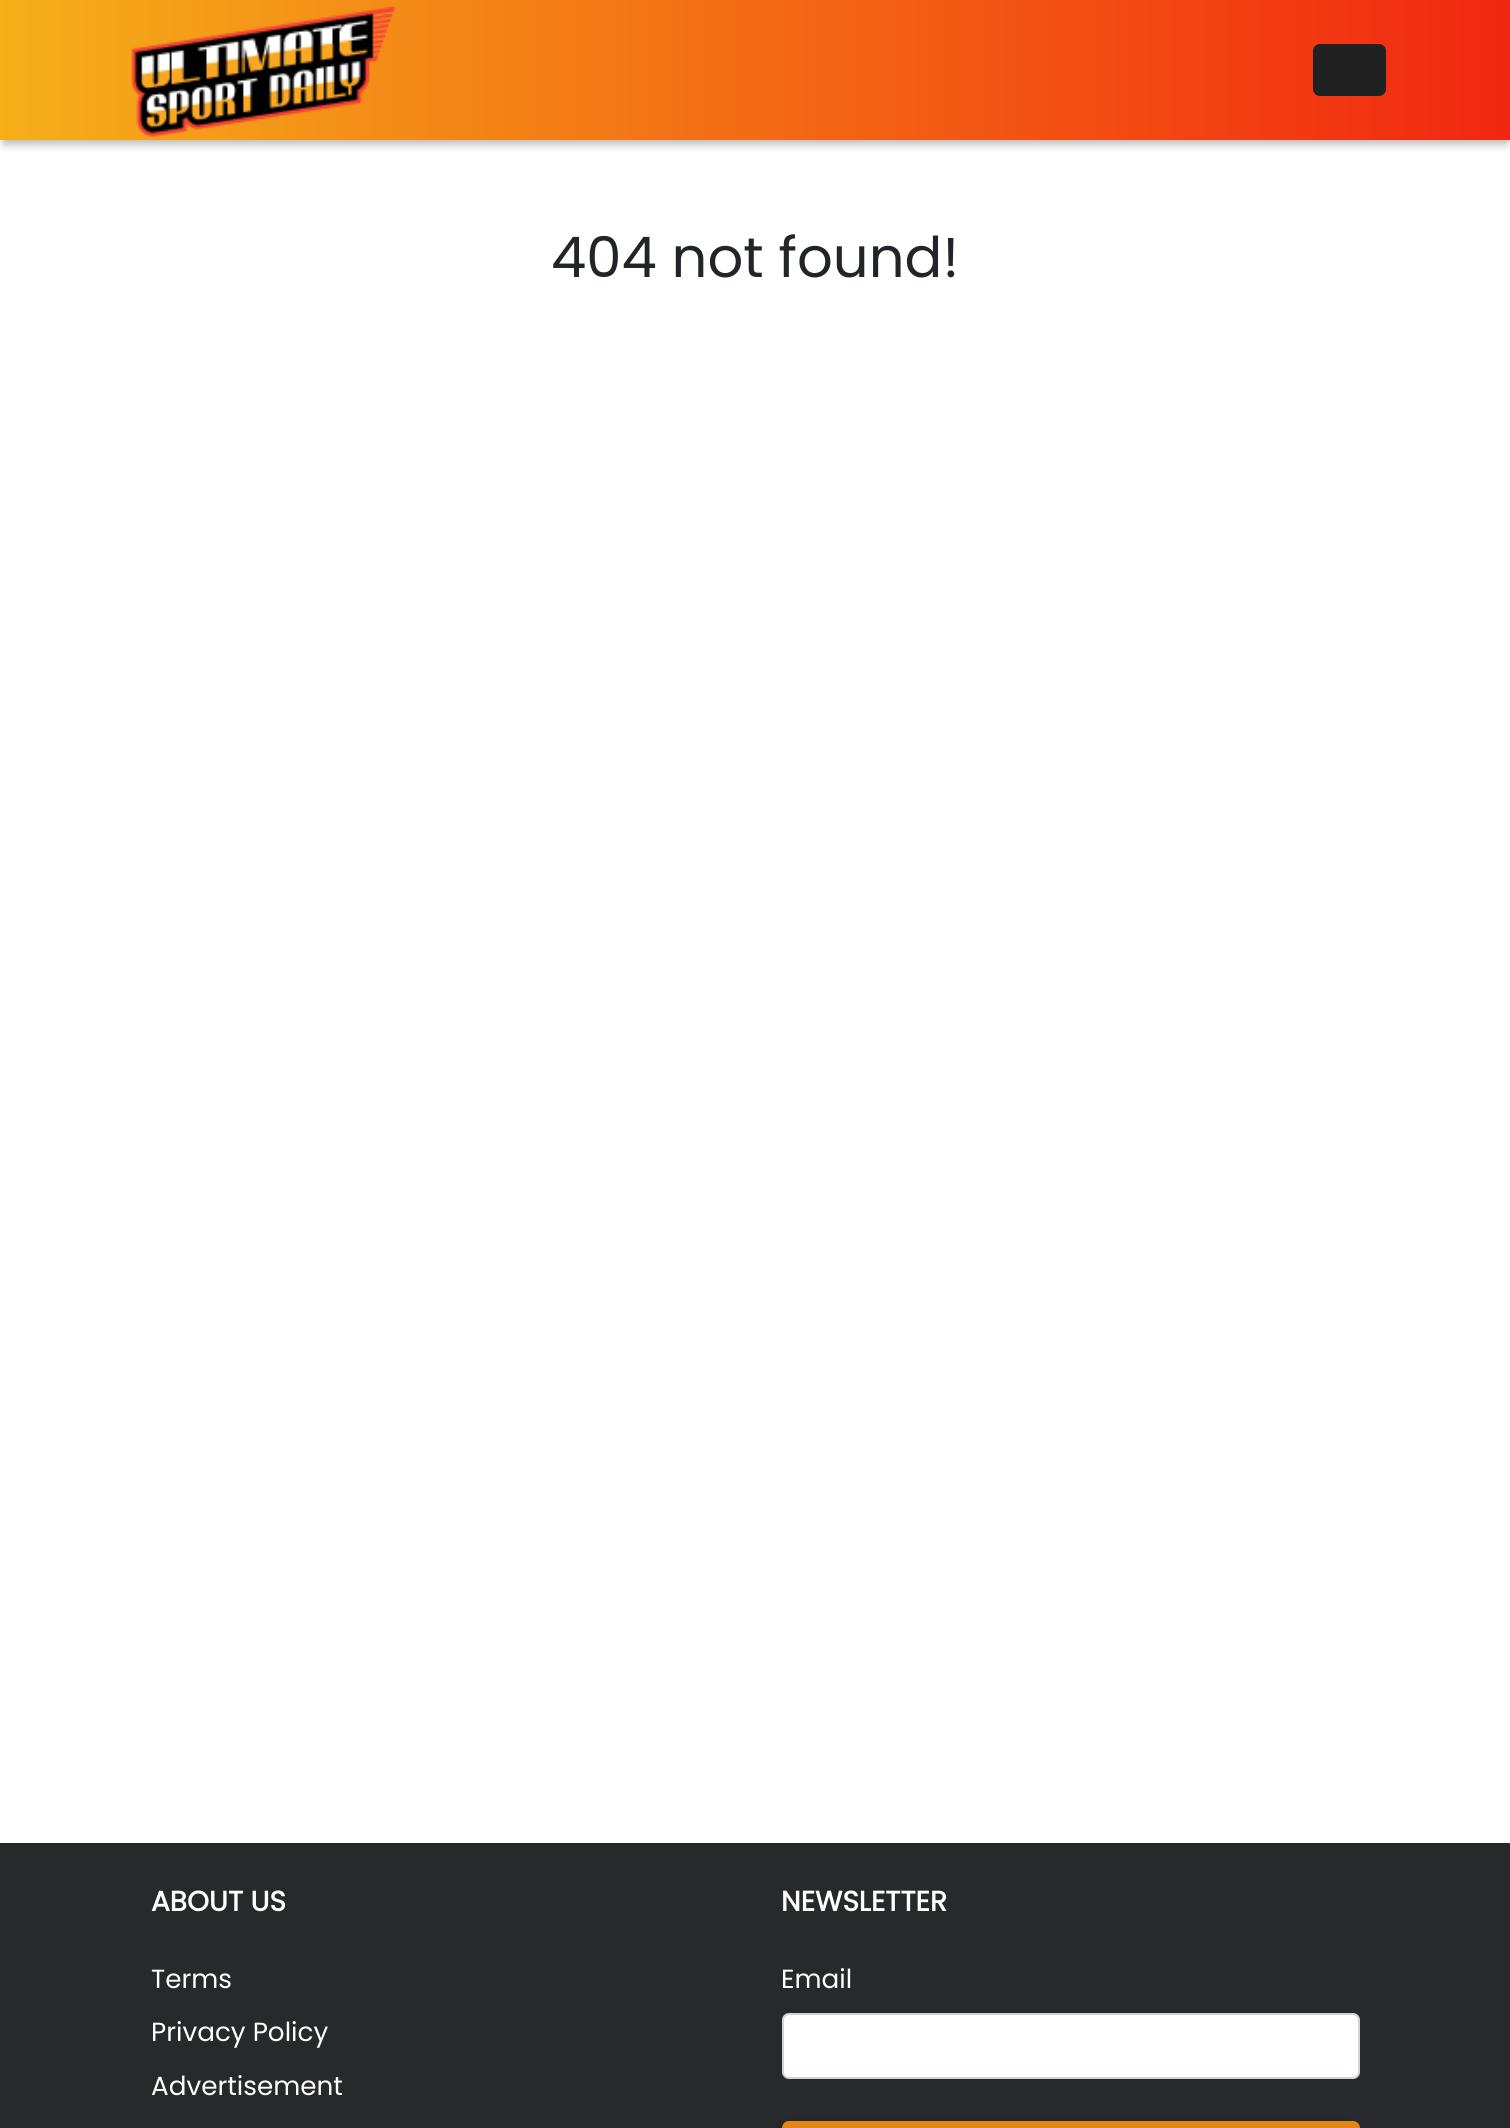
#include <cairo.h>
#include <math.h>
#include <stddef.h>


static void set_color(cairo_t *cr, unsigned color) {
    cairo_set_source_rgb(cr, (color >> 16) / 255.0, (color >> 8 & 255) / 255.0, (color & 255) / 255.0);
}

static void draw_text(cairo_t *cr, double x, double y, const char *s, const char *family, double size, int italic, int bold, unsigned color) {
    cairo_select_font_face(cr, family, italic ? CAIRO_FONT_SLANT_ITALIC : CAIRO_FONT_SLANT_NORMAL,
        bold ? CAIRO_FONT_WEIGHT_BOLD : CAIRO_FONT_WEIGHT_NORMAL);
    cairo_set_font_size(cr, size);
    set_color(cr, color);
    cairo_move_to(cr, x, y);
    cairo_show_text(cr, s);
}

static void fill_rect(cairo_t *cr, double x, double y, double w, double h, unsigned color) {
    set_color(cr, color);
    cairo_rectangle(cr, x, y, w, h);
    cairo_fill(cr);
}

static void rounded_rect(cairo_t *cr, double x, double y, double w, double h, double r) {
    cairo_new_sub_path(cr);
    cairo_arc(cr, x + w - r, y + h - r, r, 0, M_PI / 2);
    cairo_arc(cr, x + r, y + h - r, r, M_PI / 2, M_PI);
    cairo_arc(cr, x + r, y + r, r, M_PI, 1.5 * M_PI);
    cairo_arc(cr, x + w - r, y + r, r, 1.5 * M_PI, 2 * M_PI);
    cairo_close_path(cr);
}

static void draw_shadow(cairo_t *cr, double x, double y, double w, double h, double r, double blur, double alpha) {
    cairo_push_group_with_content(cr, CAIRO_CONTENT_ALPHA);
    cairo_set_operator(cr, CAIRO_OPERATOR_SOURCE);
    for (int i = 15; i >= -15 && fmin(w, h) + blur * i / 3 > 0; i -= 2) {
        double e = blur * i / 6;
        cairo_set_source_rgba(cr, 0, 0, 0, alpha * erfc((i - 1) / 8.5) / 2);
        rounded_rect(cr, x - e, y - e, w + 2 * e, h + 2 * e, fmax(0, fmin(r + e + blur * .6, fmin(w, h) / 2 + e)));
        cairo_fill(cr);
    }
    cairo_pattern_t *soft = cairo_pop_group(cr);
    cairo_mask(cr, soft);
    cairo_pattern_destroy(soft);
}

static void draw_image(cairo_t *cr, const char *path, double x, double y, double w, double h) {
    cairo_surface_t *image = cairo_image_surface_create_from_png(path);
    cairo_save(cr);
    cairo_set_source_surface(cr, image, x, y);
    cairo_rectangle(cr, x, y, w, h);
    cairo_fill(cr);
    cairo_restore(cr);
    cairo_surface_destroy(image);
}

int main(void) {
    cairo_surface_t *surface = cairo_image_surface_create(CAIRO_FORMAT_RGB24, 1510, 2128);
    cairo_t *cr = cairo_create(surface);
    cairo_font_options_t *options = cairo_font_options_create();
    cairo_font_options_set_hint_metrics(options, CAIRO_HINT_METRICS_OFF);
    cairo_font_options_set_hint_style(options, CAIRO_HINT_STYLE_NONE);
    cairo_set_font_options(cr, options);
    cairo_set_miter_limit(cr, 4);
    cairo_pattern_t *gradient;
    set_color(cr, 0xFFFFFF);
    cairo_paint(cr);
    set_color(cr, 0xB6B6B6);
    draw_shadow(cr, 4, 11, 1503, 133, 0, 4.5, 1);
    gradient = cairo_pattern_create_linear(0, 70, 1510, 70);
    cairo_pattern_add_color_stop_rgba(gradient, 0, 0.961, 0.686, 0.098, 1);
    cairo_pattern_add_color_stop_rgba(gradient, 1, 0.945, 0.153, 0.067, 1);
    cairo_set_source(cr, gradient);
    cairo_pattern_destroy(gradient);
    cairo_rectangle(cr, 0, 0, 1510, 140);
    cairo_fill(cr);
    draw_image(cr, "assets/img1.png", 131, 6, 265, 131);
    set_color(cr, 0x212121);
    rounded_rect(cr, 1313, 44, 73, 52, 7);
    cairo_fill(cr);
    draw_text(cr, 551, 277, "404 not found!", "Poppins", 56, 0, 0, 0x212529);
    fill_rect(cr, 0, 1843, 1510, 285, 0x28292D);
    draw_text(cr, 151, 1911, "ABOUT US", "Poppins", 28, 0, 1, 0xFFFFFF);
    draw_text(cr, 151, 1988, "Terms", "Poppins", 26.25, 0, 0, 0xFFFFFF);
    draw_text(cr, 151, 2041, "Privacy Policy", "Poppins", 26.25, 0, 0, 0xFFFFFF);
    draw_text(cr, 151, 2095, "Advertisement", "Poppins", 26.25, 0, 0, 0xFFFFFF);
    draw_text(cr, 781, 1911, "NEWSLETTER", "Poppins", 28, 0, 1, 0xFFFFFF);
    draw_text(cr, 781, 1988, "Email", "Poppins", 26.25, 0, 0, 0xFFFFFF);
    rounded_rect(cr, 783, 2014, 576, 64, 6);
    cairo_fill_preserve(cr);
    set_color(cr, 0xCED4DA);
    cairo_stroke(cr);
    set_color(cr, 0x000000);
    draw_shadow(cr, 779, 2125, 577, 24, 7, 4.5, 0.35);
    set_color(cr, 0xE38615);
    rounded_rect(cr, 782, 2121, 578, 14, 7);
    cairo_fill(cr);
    cairo_surface_write_to_png(surface, "output.png");
    cairo_font_options_destroy(options);
    cairo_destroy(cr);
    cairo_surface_destroy(surface);
    return 0;
}
